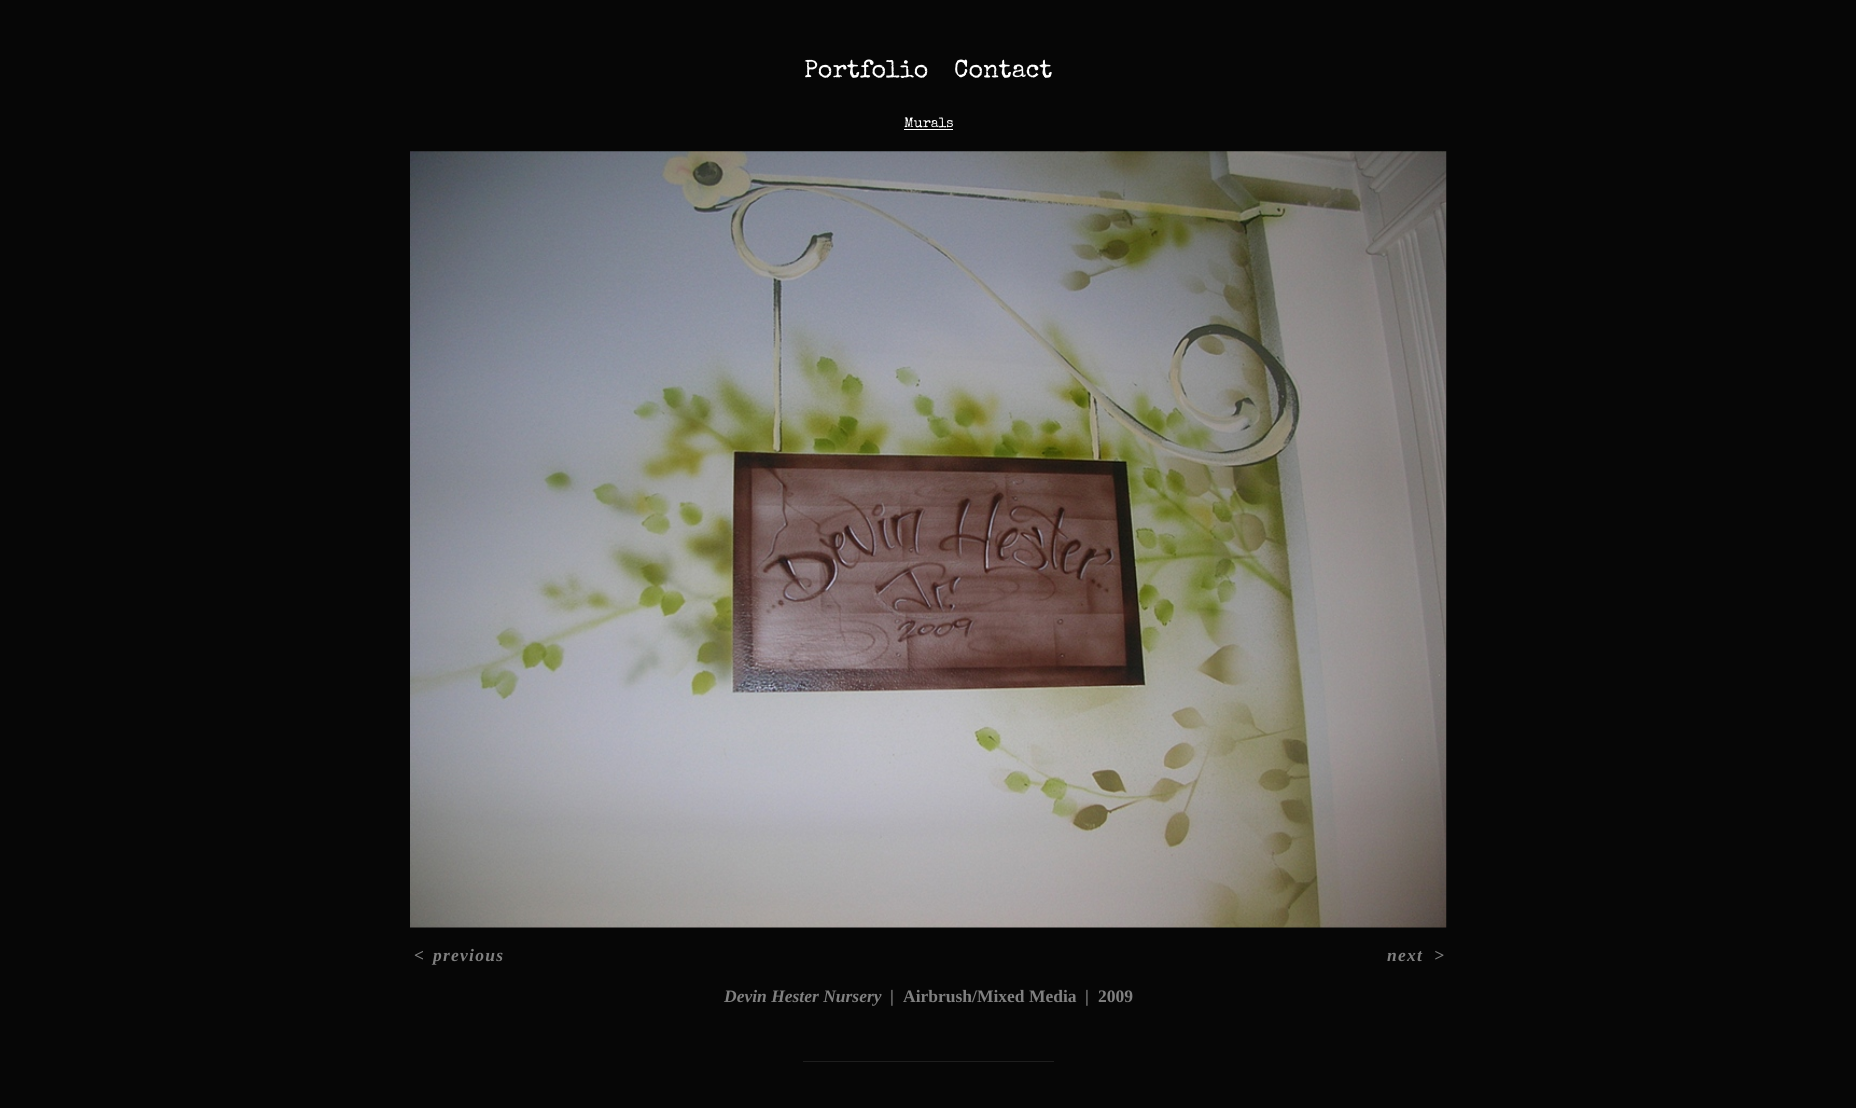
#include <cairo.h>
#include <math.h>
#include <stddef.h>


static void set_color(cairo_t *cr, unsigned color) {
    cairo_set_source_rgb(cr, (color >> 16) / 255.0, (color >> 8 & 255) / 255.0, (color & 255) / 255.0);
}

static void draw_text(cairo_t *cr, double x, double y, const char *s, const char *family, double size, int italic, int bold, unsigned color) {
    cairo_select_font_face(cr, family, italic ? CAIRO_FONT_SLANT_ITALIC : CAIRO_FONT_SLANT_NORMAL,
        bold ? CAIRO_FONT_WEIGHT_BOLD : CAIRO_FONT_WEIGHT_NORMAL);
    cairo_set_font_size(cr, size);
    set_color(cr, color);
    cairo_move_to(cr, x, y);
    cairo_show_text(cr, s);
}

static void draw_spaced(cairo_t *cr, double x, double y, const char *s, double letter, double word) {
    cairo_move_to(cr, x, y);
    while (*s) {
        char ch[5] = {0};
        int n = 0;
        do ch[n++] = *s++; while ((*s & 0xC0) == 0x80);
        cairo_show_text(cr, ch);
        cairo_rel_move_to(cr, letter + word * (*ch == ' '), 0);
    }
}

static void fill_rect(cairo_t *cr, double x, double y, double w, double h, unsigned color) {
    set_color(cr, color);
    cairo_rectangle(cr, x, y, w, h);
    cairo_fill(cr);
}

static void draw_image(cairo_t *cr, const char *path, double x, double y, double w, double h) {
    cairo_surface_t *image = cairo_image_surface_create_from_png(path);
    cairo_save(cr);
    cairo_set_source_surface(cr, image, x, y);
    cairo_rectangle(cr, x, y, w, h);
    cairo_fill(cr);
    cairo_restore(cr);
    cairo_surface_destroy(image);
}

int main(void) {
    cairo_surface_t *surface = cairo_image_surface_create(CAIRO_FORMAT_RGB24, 1856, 1108);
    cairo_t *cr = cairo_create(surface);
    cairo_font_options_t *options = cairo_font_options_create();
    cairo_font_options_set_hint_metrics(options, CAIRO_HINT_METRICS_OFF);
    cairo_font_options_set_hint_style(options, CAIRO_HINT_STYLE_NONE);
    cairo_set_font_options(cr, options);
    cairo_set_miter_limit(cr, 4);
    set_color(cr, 0x060606);
    cairo_paint(cr);
    draw_text(cr, 804, 77, "Portfolio", "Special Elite", 25, 0, 0, 0xFFFFFF);
    draw_text(cr, 954, 77, "Contact", "Special Elite", 25, 0, 0, 0xFFFFFF);
    draw_text(cr, 904, 127, "Murals", "Special Elite", 14, 0, 0, 0xFFFFFF);
    fill_rect(cr, 904, 129, 49, 1, 0xFFFFFF);
    draw_image(cr, "assets/img1.png", 410, 151, 1037, 777);
    cairo_select_font_face(cr, "Liberation Serif", CAIRO_FONT_SLANT_ITALIC, CAIRO_FONT_WEIGHT_BOLD);
    cairo_set_font_size(cr, 17.5);
    set_color(cr, 0x808080);
    draw_spaced(cr, 414, 961, "<", 1.25, 0);
    draw_spaced(cr, 433, 961, "previous", 1.25, 0);
    draw_spaced(cr, 1387, 961, "next", 1.25, 0);
    draw_spaced(cr, 1434, 961, ">", 1.25, 0);
    draw_text(cr, 724, 1002, "Devin Hester Nursery", "Liberation Serif", 17.5, 1, 1, 0x808080);
    draw_text(cr, 890, 1002, "|", "Liberation Serif", 17.5, 0, 1, 0x808080);
    draw_text(cr, 903, 1002, "Airbrush/Mixed Media", "Liberation Serif", 17.5, 0, 1, 0x808080);
    draw_text(cr, 1085, 1002, "|", "Liberation Serif", 17.5, 0, 1, 0x808080);
    draw_text(cr, 1098, 1002, "2009", "Liberation Serif", 17.5, 0, 1, 0x808080);
    fill_rect(cr, 803, 1061, 251, 1, 0x1E1E1E);
    cairo_surface_write_to_png(surface, "output.png");
    cairo_font_options_destroy(options);
    cairo_destroy(cr);
    cairo_surface_destroy(surface);
    return 0;
}
